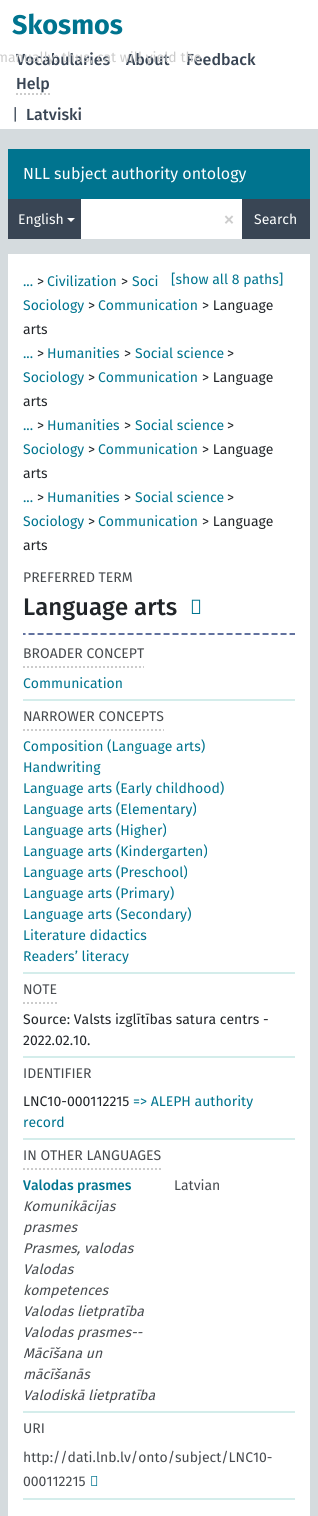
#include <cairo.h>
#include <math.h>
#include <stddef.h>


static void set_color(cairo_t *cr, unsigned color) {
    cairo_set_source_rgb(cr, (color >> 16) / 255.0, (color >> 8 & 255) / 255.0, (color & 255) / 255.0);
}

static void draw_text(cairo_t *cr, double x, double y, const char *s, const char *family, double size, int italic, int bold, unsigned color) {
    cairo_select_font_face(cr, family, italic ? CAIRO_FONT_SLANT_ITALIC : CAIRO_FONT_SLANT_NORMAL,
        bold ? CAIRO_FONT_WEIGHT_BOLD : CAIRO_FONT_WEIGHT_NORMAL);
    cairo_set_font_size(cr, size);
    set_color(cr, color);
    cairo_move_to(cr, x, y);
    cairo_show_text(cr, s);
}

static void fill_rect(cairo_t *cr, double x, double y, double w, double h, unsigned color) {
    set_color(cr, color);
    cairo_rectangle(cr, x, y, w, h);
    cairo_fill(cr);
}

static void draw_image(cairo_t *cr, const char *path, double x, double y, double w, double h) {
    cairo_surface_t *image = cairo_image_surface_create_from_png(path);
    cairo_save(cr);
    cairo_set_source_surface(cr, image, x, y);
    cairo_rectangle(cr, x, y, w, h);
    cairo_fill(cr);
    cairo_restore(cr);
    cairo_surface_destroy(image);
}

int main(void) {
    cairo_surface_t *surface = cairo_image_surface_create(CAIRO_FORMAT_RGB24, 318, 1516);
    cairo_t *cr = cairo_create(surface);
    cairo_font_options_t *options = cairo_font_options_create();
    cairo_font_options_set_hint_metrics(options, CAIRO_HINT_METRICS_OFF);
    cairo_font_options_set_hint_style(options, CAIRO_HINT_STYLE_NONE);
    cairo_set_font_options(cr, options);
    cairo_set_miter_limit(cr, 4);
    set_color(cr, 0xD5DBDE);
    cairo_paint(cr);
    fill_rect(cr, 0, 0, 318, 129, 0xFFFFFF);
    draw_text(cr, 12, 34, "Skosmos", "Fira Sans", 27, 0, 1, 0x00748F);
    draw_text(cr, 16, 65, "Vocabularies", "Fira Sans Medium", 16, 0, 0, 0x394554);
    draw_text(cr, 126, 65, "About", "Fira Sans Medium", 16, 0, 0, 0x394554);
    draw_text(cr, 186, 65, "Feedback", "Fira Sans Medium", 16, 0, 0, 0x394554);
    draw_text(cr, -4, 62, "manually: thus, cat will yield the", "Fira Sans", 14, 0, 0, 0xCCCCCC);
    draw_text(cr, 16, 89, "Help", "Fira Sans Medium", 16, 0, 0, 0x394554);
    cairo_new_path(cr);
    cairo_move_to(cr, 16, 94);
    cairo_line_to(cr, 50, 94);
    set_color(cr, 0xCCCCCC);
    cairo_set_dash(cr, (double[]){2, 2}, 2, 0);
    cairo_stroke(cr);
    draw_text(cr, 12, 120, "|", "Fira Sans", 16, 0, 0, 0x394554);
    draw_text(cr, 26, 120, "Latviski", "Fira Sans Medium", 16, 0, 0, 0x394554);
    fill_rect(cr, 8, 149, 302, 50, 0x00748F);
    draw_text(cr, 23, 179, "NLL subject authority ontology", "Fira Sans", 16, 0, 0, 0xFCFEFE);
    fill_rect(cr, 8, 199, 73, 40, 0x394554);
    draw_text(cr, 18, 224, "English", "Fira Sans", 14, 0, 0, 0xFCFEFE);
    set_color(cr, 0xFFFFFF);
    cairo_new_path(cr);
    cairo_move_to(cr, 67, 218);
    cairo_line_to(cr, 75, 218);
    cairo_line_to(cr, 71, 222);
    cairo_close_path(cr);
    cairo_fill(cr);
    fill_rect(cr, 81, 199, 161, 40, 0xFFFFFF);
    draw_text(cr, 223, 227, "×", "Fira Sans", 24, 0, 0, 0xCCCCCC);
    fill_rect(cr, 242, 199, 68, 40, 0x394554);
    draw_text(cr, 254, 224, "Search", "Fira Sans", 14, 0, 0, 0xFCFEFE);
    fill_rect(cr, 8, 254, 302, 1262, 0xFFFFFF);
    draw_text(cr, 171, 284, "[show all 8 paths]", "Fira Sans", 14, 0, 0, 0x00748F);
    draw_text(cr, 37, 286, ">", "Fira Sans", 14, 0, 0, 0x212529);
    draw_text(cr, 47, 286, "Civilization", "Fira Sans", 14, 0, 0, 0x00748F);
    draw_text(cr, 121, 286, ">", "Fira Sans", 14, 0, 0, 0x212529);
    draw_text(cr, 132, 286, "Soci", "Fira Sans", 14, 0, 0, 0x00748F);
    draw_text(cr, 23, 286, "...", "Fira Sans", 14, 0, 0, 0x00748F);
    draw_text(cr, 23, 310, "Sociology", "Fira Sans", 14, 0, 0, 0x00748F);
    draw_text(cr, 88, 310, ">", "Fira Sans", 14, 0, 0, 0x212529);
    draw_text(cr, 98, 310, "Communication", "Fira Sans", 14, 0, 0, 0x00748F);
    draw_text(cr, 202, 310, "> Language", "Fira Sans", 14, 0, 0, 0x212529);
    draw_text(cr, 23, 334, "arts", "Fira Sans", 14, 0, 0, 0x212529);
    draw_text(cr, 37, 358, ">", "Fira Sans", 14, 0, 0, 0x212529);
    draw_text(cr, 47, 358, "Humanities", "Fira Sans", 14, 0, 0, 0x00748F);
    draw_text(cr, 124, 358, ">", "Fira Sans", 14, 0, 0, 0x212529);
    draw_text(cr, 135, 358, "Social science", "Fira Sans", 14, 0, 0, 0x00748F);
    draw_text(cr, 227, 358, ">", "Fira Sans", 14, 0, 0, 0x212529);
    draw_text(cr, 23, 358, "...", "Fira Sans", 14, 0, 0, 0x00748F);
    draw_text(cr, 23, 382, "Sociology", "Fira Sans", 14, 0, 0, 0x00748F);
    draw_text(cr, 88, 382, ">", "Fira Sans", 14, 0, 0, 0x212529);
    draw_text(cr, 98, 382, "Communication", "Fira Sans", 14, 0, 0, 0x00748F);
    draw_text(cr, 202, 382, "> Language", "Fira Sans", 14, 0, 0, 0x212529);
    draw_text(cr, 23, 406, "arts", "Fira Sans", 14, 0, 0, 0x212529);
    draw_text(cr, 37, 430, ">", "Fira Sans", 14, 0, 0, 0x212529);
    draw_text(cr, 47, 430, "Humanities", "Fira Sans", 14, 0, 0, 0x00748F);
    draw_text(cr, 124, 430, ">", "Fira Sans", 14, 0, 0, 0x212529);
    draw_text(cr, 135, 430, "Social science", "Fira Sans", 14, 0, 0, 0x00748F);
    draw_text(cr, 227, 430, ">", "Fira Sans", 14, 0, 0, 0x212529);
    draw_text(cr, 23, 430, "...", "Fira Sans", 14, 0, 0, 0x00748F);
    draw_text(cr, 23, 454, "Sociology", "Fira Sans", 14, 0, 0, 0x00748F);
    draw_text(cr, 88, 454, ">", "Fira Sans", 14, 0, 0, 0x212529);
    draw_text(cr, 98, 454, "Communication", "Fira Sans", 14, 0, 0, 0x00748F);
    draw_text(cr, 202, 454, "> Language", "Fira Sans", 14, 0, 0, 0x212529);
    draw_text(cr, 23, 478, "arts", "Fira Sans", 14, 0, 0, 0x212529);
    draw_text(cr, 37, 502, ">", "Fira Sans", 14, 0, 0, 0x212529);
    draw_text(cr, 47, 502, "Humanities", "Fira Sans", 14, 0, 0, 0x00748F);
    draw_text(cr, 124, 502, ">", "Fira Sans", 14, 0, 0, 0x212529);
    draw_text(cr, 135, 502, "Social science", "Fira Sans", 14, 0, 0, 0x00748F);
    draw_text(cr, 227, 502, ">", "Fira Sans", 14, 0, 0, 0x212529);
    draw_text(cr, 23, 502, "...", "Fira Sans", 14, 0, 0, 0x00748F);
    draw_text(cr, 23, 526, "Sociology", "Fira Sans", 14, 0, 0, 0x00748F);
    draw_text(cr, 88, 526, ">", "Fira Sans", 14, 0, 0, 0x212529);
    draw_text(cr, 98, 526, "Communication", "Fira Sans", 14, 0, 0, 0x00748F);
    draw_text(cr, 202, 526, "> Language", "Fira Sans", 14, 0, 0, 0x212529);
    draw_text(cr, 23, 550, "arts", "Fira Sans", 14, 0, 0, 0x212529);
    draw_text(cr, 23, 582, "PREFERRED TERM", "Fira Sans", 14, 0, 0, 0x474B4F);
    draw_text(cr, 23, 615, "Language arts", "Fira Sans Medium", 24, 0, 0, 0x212529);
    draw_image(cr, "assets/img1.png", 191, 599, 10, 15);
    draw_image(cr, "assets/img2.png", 23, 633, 272, 2);
    cairo_new_path(cr);
    cairo_move_to(cr, 23, 667);
    cairo_line_to(cr, 144, 667);
    set_color(cr, 0xCCCCCC);
    cairo_stroke(cr);
    draw_text(cr, 23, 658, "BROADER CONCEPT", "Fira Sans", 14, 0, 0, 0x474B4F);
    fill_rect(cr, 23, 699, 272, 2, 0xD4EDEB);
    draw_text(cr, 23, 688, "Communication", "Fira Sans", 14, 0, 0, 0x00748F);
    cairo_new_path(cr);
    cairo_move_to(cr, 23, 730);
    cairo_line_to(cr, 164, 730);
    set_color(cr, 0xCCCCCC);
    cairo_stroke(cr);
    draw_text(cr, 23, 721, "NARROWER CONCEPTS", "Fira Sans", 14, 0, 0, 0x474B4F);
    fill_rect(cr, 23, 972, 272, 2, 0xD4EDEB);
    draw_text(cr, 23, 751, "Composition (Language arts)", "Fira Sans", 14, 0, 0, 0x00748F);
    draw_text(cr, 23, 772, "Handwriting", "Fira Sans", 14, 0, 0, 0x00748F);
    draw_text(cr, 23, 793, "Language arts (Early childhood)", "Fira Sans", 14, 0, 0, 0x00748F);
    draw_text(cr, 23, 814, "Language arts (Elementary)", "Fira Sans", 14, 0, 0, 0x00748F);
    draw_text(cr, 23, 835, "Language arts (Higher)", "Fira Sans", 14, 0, 0, 0x00748F);
    draw_text(cr, 23, 856, "Language arts (Kindergarten)", "Fira Sans", 14, 0, 0, 0x00748F);
    draw_text(cr, 23, 877, "Language arts (Preschool)", "Fira Sans", 14, 0, 0, 0x00748F);
    draw_text(cr, 23, 898, "Language arts (Primary)", "Fira Sans", 14, 0, 0, 0x00748F);
    draw_text(cr, 23, 919, "Language arts (Secondary)", "Fira Sans", 14, 0, 0, 0x00748F);
    draw_text(cr, 23, 940, "Literature didactics", "Fira Sans", 14, 0, 0, 0x00748F);
    draw_text(cr, 23, 961, "Readers’ literacy", "Fira Sans", 14, 0, 0, 0x00748F);
    cairo_new_path(cr);
    cairo_move_to(cr, 23, 1003);
    cairo_line_to(cr, 57, 1003);
    set_color(cr, 0xCCCCCC);
    cairo_stroke(cr);
    draw_text(cr, 23, 994, "NOTE", "Fira Sans", 14, 0, 0, 0x474B4F);
    fill_rect(cr, 23, 1056, 272, 2, 0xD4EDEB);
    draw_text(cr, 23, 1024, "Source: Valsts izglītības satura centrs -", "Fira Sans", 14, 0, 0, 0x212529);
    draw_text(cr, 23, 1045, "2022.02.10.", "Fira Sans", 14, 0, 0, 0x212529);
    draw_text(cr, 23, 1078, "IDENTIFIER", "Fira Sans", 14, 0, 0, 0x474B4F);
    fill_rect(cr, 23, 1138, 272, 2, 0xD4EDEB);
    draw_text(cr, 23, 1106, "LNC10-000112215", "Fira Sans", 14, 0, 0, 0x212529);
    draw_text(cr, 133, 1106, "=> ALEPH authority", "Fira Sans", 14, 0, 0, 0x00748F);
    draw_text(cr, 23, 1127, "record", "Fira Sans", 14, 0, 0, 0x00748F);
    cairo_new_path(cr);
    cairo_move_to(cr, 23, 1169);
    cairo_line_to(cr, 161, 1169);
    set_color(cr, 0xCCCCCC);
    cairo_stroke(cr);
    draw_text(cr, 23, 1160, "IN OTHER LANGUAGES", "Fira Sans", 14, 0, 0, 0x474B4F);
    fill_rect(cr, 23, 1411, 272, 2, 0xD4EDEB);
    draw_text(cr, 23, 1190, "Valodas prasmes", "Fira Sans Medium", 14, 0, 0, 0x00748F);
    draw_text(cr, 174, 1190, "Latvian", "Fira Sans", 14, 0, 0, 0x474B4F);
    draw_text(cr, 23, 1211, "Komunikācijas", "Fira Sans", 14, 1, 0, 0x474B4F);
    draw_text(cr, 23, 1232, "prasmes", "Fira Sans", 14, 1, 0, 0x474B4F);
    draw_text(cr, 23, 1253, "Prasmes, valodas", "Fira Sans", 14, 1, 0, 0x474B4F);
    draw_text(cr, 23, 1274, "Valodas", "Fira Sans", 14, 1, 0, 0x474B4F);
    draw_text(cr, 23, 1295, "kompetences", "Fira Sans", 14, 1, 0, 0x474B4F);
    draw_text(cr, 23, 1316, "Valodas lietpratība", "Fira Sans", 14, 1, 0, 0x474B4F);
    draw_text(cr, 23, 1337, "Valodas prasmes--", "Fira Sans", 14, 1, 0, 0x474B4F);
    draw_text(cr, 23, 1358, "Mācīšana un", "Fira Sans", 14, 1, 0, 0x474B4F);
    draw_text(cr, 23, 1379, "mācīšanās", "Fira Sans", 14, 1, 0, 0x474B4F);
    draw_text(cr, 23, 1400, "Valodiskā lietpratība", "Fira Sans", 14, 1, 0, 0x474B4F);
    draw_text(cr, 23, 1433, "URI", "Fira Sans", 14, 0, 0, 0x474B4F);
    fill_rect(cr, 23, 1498, 272, 2, 0xD4EDEB);
    draw_text(cr, 23, 1462, "http://dati.lnb.lv/onto/subject/LNC10-", "Fira Sans", 14, 0, 0, 0x474B4F);
    draw_text(cr, 23, 1486, "000112215", "Fira Sans", 14, 0, 0, 0x474B4F);
    draw_image(cr, "assets/img3.png", 91, 1476, 7, 10);
    cairo_surface_write_to_png(surface, "output.png");
    cairo_font_options_destroy(options);
    cairo_destroy(cr);
    cairo_surface_destroy(surface);
    return 0;
}
